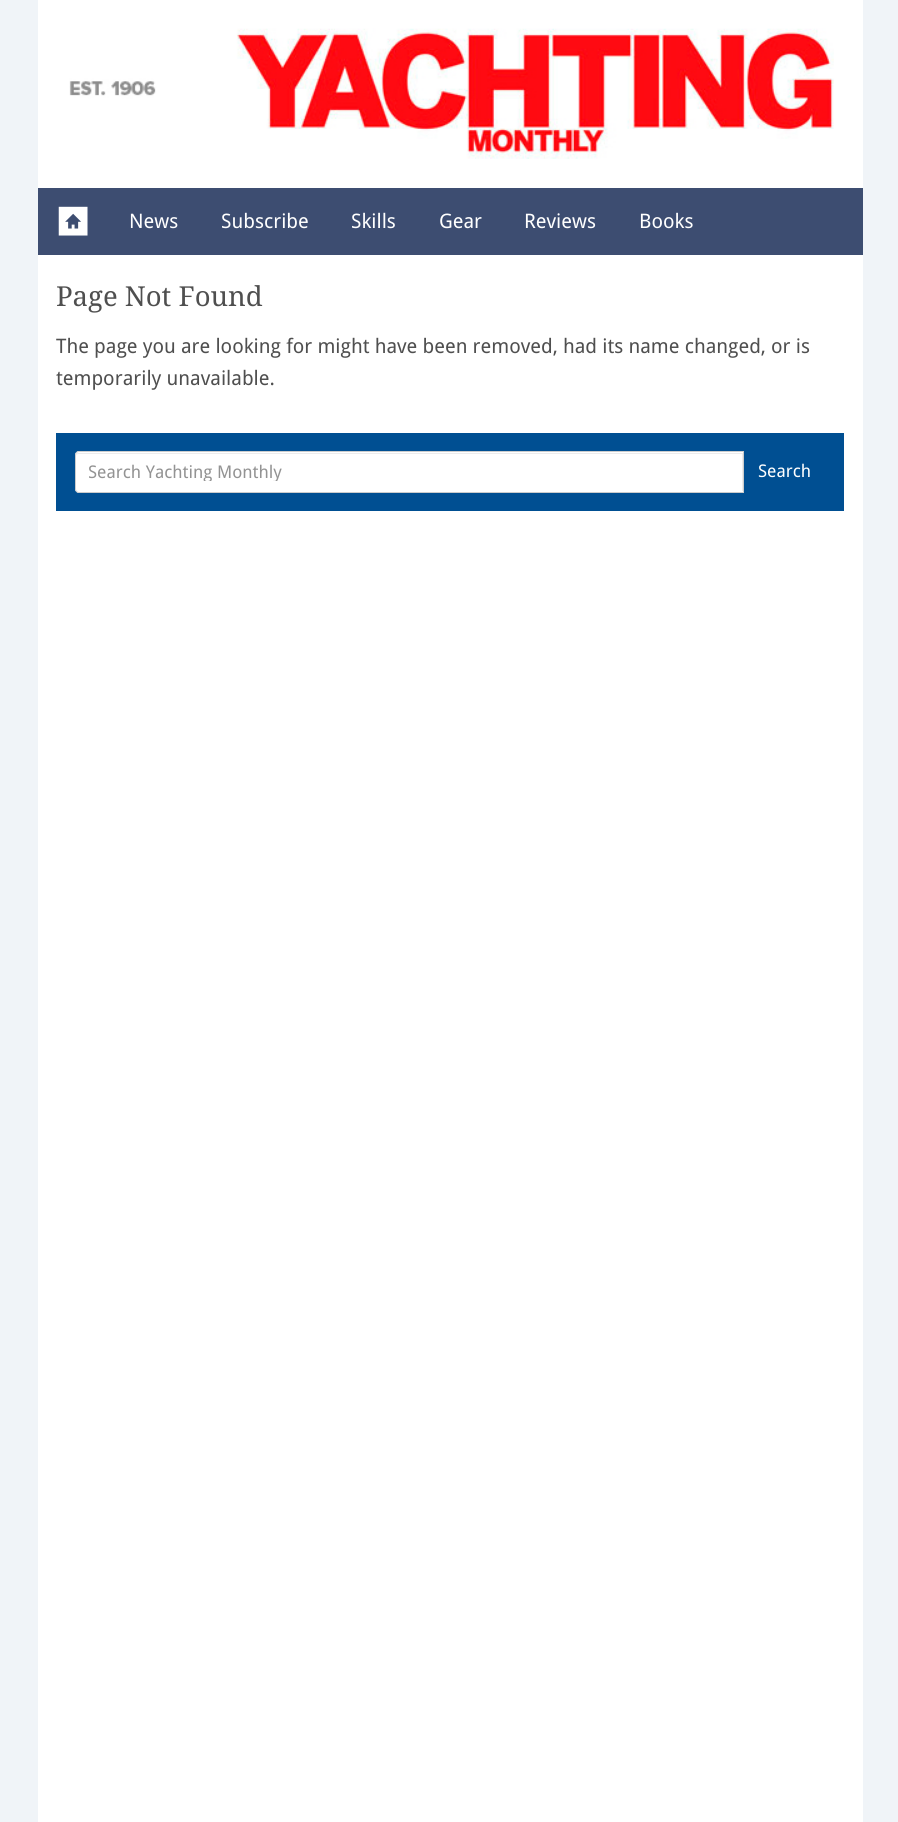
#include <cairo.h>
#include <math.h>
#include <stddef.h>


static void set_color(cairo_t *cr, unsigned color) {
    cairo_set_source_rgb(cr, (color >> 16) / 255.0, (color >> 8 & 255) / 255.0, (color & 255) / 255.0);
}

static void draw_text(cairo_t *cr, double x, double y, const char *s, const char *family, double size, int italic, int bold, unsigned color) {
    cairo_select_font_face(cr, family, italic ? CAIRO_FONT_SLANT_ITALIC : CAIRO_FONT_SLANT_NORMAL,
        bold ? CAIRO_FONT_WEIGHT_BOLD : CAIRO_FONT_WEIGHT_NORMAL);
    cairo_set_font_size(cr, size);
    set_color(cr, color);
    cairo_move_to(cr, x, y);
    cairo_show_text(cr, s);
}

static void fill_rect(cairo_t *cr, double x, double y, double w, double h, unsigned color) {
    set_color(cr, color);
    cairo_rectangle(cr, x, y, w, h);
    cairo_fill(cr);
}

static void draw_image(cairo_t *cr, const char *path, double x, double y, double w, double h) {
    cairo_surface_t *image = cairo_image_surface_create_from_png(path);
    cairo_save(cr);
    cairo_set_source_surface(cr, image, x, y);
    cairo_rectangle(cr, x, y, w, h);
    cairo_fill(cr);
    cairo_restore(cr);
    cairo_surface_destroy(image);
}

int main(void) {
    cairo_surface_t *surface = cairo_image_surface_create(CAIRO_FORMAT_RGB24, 898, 1822);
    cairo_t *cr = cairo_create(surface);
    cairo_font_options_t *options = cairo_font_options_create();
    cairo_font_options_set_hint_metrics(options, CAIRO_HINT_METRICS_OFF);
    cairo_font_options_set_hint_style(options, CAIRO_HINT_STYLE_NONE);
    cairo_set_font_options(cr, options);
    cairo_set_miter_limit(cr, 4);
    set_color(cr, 0xF0F4F8);
    cairo_paint(cr);
    fill_rect(cr, 38, 0, 825, 1822, 0xFFFFFF);
    draw_image(cr, "assets/img1.png", 69, 28, 765, 131);
    fill_rect(cr, 38, 188, 825, 67, 0x3D4D71);
    draw_image(cr, "assets/img2.png", 58, 206, 30, 30);
    draw_text(cr, 129, 228, "News", "Droid Sans", 20, 0, 0, 0xFFFFFF);
    draw_text(cr, 221, 228, "Subscribe", "Droid Sans", 20, 0, 0, 0xFFFFFF);
    draw_text(cr, 351, 228, "Skills", "Droid Sans", 20, 0, 0, 0xFFFFFF);
    draw_text(cr, 439, 228, "Gear", "Droid Sans", 20, 0, 0, 0xFFFFFF);
    draw_text(cr, 524, 228, "Reviews", "Droid Sans", 20, 0, 0, 0xFFFFFF);
    draw_text(cr, 639, 228, "Books", "Droid Sans", 20, 0, 0, 0xFFFFFF);
    draw_text(cr, 56, 306, "Page Not Found", "Droid Serif", 27.5, 0, 0, 0x4F4F4F);
    draw_text(cr, 56, 353, "The page you are looking for might have been removed, had its name changed, or is", "Droid Sans", 20, 0, 0, 0x4F4F4F);
    draw_text(cr, 56, 385, "temporarily unavailable.", "Droid Sans", 20, 0, 0, 0x4F4F4F);
    fill_rect(cr, 56, 433, 788, 78, 0x004F92);
    set_color(cr, 0xFFFFFF);
    cairo_new_path(cr);
    cairo_move_to(cr, 79, 451);
    cairo_line_to(cr, 744, 451);
    cairo_line_to(cr, 744, 493);
    cairo_line_to(cr, 79, 493);
    cairo_curve_to(cr, 77, 493, 75, 491, 75, 489);
    cairo_line_to(cr, 75, 455);
    cairo_curve_to(cr, 75, 453, 77, 451, 79, 451);
    cairo_close_path(cr);
    cairo_fill(cr);
    set_color(cr, 0xECECEC);
    cairo_new_path(cr);
    cairo_move_to(cr, 79, 454);
    cairo_line_to(cr, 742, 454);
    cairo_line_to(cr, 742, 491);
    cairo_line_to(cr, 743, 491);
    cairo_line_to(cr, 743, 453);
    cairo_line_to(cr, 78, 453);
    cairo_curve_to(cr, 77, 453, 76, 454, 76, 456);
    cairo_curve_to(cr, 76, 455, 77, 454, 79, 454);
    cairo_close_path(cr);
    cairo_fill(cr);
    cairo_new_path(cr);
    cairo_move_to(cr, 79, 451.5);
    cairo_line_to(cr, 743.5, 451.5);
    cairo_line_to(cr, 743.5, 492.5);
    cairo_line_to(cr, 79, 492.5);
    cairo_curve_to(cr, 77, 492.5, 75.5, 491, 75.5, 489);
    cairo_line_to(cr, 75.5, 455);
    cairo_curve_to(cr, 75.5, 453, 77, 451.5, 79, 451.5);
    cairo_close_path(cr);
    set_color(cr, 0xCCCCCC);
    cairo_set_line_width(cr, 1);
    cairo_stroke(cr);
    cairo_save(cr);
    cairo_rectangle(cr, 89, 461, 636, 20);
    cairo_clip(cr);
    draw_text(cr, 88, 478, "Search Yachting Monthly", "Droid Sans", 17.5, 0, 0, 0x939393);
    cairo_restore(cr);
    draw_text(cr, 758, 477, "Search", "Droid Sans", 17.5, 0, 0, 0xFFFFFF);
    cairo_surface_write_to_png(surface, "output.png");
    cairo_font_options_destroy(options);
    cairo_destroy(cr);
    cairo_surface_destroy(surface);
    return 0;
}
